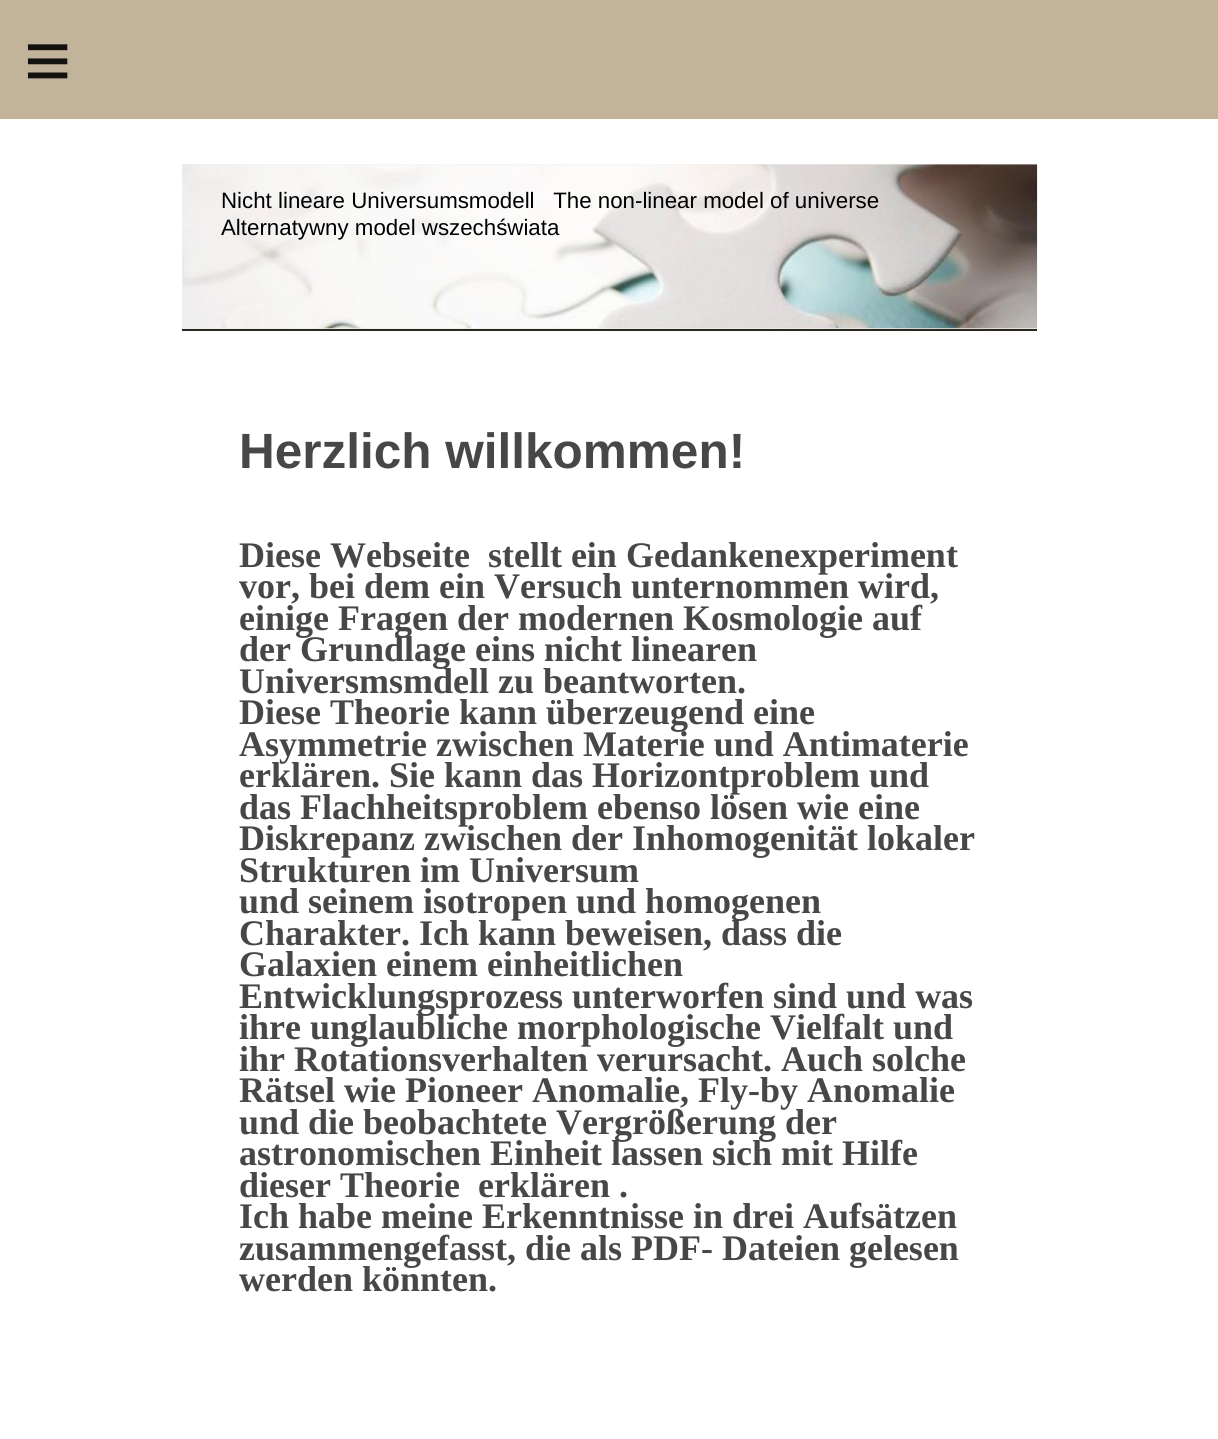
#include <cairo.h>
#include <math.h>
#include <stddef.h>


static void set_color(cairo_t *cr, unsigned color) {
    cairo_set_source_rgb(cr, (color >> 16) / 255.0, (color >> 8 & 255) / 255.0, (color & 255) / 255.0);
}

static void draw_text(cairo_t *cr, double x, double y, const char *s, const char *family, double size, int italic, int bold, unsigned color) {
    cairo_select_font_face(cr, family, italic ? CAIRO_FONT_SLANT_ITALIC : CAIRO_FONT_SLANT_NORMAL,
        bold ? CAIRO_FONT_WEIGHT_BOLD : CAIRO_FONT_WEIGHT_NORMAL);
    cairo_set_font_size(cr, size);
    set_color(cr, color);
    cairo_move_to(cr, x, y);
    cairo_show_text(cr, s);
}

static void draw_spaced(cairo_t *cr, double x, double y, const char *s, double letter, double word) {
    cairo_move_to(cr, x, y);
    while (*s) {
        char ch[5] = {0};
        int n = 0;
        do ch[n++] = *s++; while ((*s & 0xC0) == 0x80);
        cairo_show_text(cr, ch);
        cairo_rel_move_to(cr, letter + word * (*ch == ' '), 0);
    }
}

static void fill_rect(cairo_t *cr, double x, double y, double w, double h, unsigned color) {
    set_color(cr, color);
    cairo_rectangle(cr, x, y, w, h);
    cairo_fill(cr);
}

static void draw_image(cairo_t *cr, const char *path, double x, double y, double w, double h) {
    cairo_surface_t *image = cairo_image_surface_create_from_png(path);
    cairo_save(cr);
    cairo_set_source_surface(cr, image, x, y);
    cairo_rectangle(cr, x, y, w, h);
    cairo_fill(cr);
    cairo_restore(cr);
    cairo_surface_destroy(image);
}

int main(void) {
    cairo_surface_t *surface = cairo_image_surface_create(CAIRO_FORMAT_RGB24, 1218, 1439);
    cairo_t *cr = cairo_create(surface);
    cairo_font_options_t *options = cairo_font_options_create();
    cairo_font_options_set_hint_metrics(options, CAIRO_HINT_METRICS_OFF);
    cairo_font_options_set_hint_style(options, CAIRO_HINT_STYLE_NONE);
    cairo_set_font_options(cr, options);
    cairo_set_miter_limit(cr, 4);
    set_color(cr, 0xFFFFFF);
    cairo_paint(cr);
    fill_rect(cr, 0, 0, 1218, 119, 0xC2B49A);
    cairo_select_font_face(cr, "Liberation Sans", CAIRO_FONT_SLANT_NORMAL, CAIRO_FONT_WEIGHT_NORMAL);
    cairo_set_font_size(cr, 81);
    set_color(cr, 0x13120F);
    draw_spaced(cr, 24, 88, "≡", 24, 0);
    fill_rect(cr, 182, 164, 855, 165, 0xEEEEEE);
    draw_image(cr, "assets/img1.png", 182, 164, 856, 165);
    draw_text(cr, 221, 208, "Nicht lineare Universumsmodell   The non-linear model of universe", "Liberation Sans", 22.3, 0, 0, 0x000000);
    draw_text(cr, 221, 235, "Alternatywny model wszechświata", "Liberation Sans", 22.3, 0, 0, 0x000000);
    fill_rect(cr, 182, 329, 855, 2, 0x2B261E);
    draw_text(cr, 239, 468, "Herzlich willkommen!", "Liberation Sans", 49.5, 0, 1, 0x474747);
    draw_text(cr, 239, 567, "Diese Webseite  stellt ein Gedankenexperiment", "Liberation Serif", 36, 0, 1, 0x474747);
    draw_text(cr, 239, 598, "vor, bei dem ein Versuch unternommen wird,", "Liberation Serif", 36, 0, 1, 0x474747);
    draw_text(cr, 239, 630, "einige Fragen der modernen Kosmologie auf", "Liberation Serif", 36, 0, 1, 0x474747);
    draw_text(cr, 239, 661, "der Grundlage eins nicht linearen", "Liberation Serif", 36, 0, 1, 0x474747);
    draw_text(cr, 239, 693, "Universmsmdell zu beantworten.", "Liberation Serif", 36, 0, 1, 0x474747);
    draw_text(cr, 239, 724, "Diese Theorie kann überzeugend eine", "Liberation Serif", 36, 0, 1, 0x474747);
    draw_text(cr, 239, 756, "Asymmetrie zwischen Materie und Antimaterie", "Liberation Serif", 36, 0, 1, 0x474747);
    draw_text(cr, 239, 787, "erklären. Sie kann das Horizontproblem und", "Liberation Serif", 36, 0, 1, 0x474747);
    draw_text(cr, 239, 819, "das Flachheitsproblem ebenso lösen wie eine", "Liberation Serif", 36, 0, 1, 0x474747);
    draw_text(cr, 239, 850, "Diskrepanz zwischen der Inhomogenität lokaler", "Liberation Serif", 36, 0, 1, 0x474747);
    draw_text(cr, 239, 882, "Strukturen im Universum", "Liberation Serif", 36, 0, 1, 0x474747);
    draw_text(cr, 239, 913, "und seinem isotropen und homogenen", "Liberation Serif", 36, 0, 1, 0x474747);
    draw_text(cr, 239, 945, "Charakter. Ich kann beweisen, dass die", "Liberation Serif", 36, 0, 1, 0x474747);
    draw_text(cr, 239, 976, "Galaxien einem einheitlichen", "Liberation Serif", 36, 0, 1, 0x474747);
    draw_text(cr, 239, 1008, "Entwicklungsprozess unterworfen sind und was", "Liberation Serif", 36, 0, 1, 0x474747);
    draw_text(cr, 239, 1039, "ihre unglaubliche morphologische Vielfalt und", "Liberation Serif", 36, 0, 1, 0x474747);
    draw_text(cr, 239, 1071, "ihr Rotationsverhalten verursacht. Auch solche", "Liberation Serif", 36, 0, 1, 0x474747);
    draw_text(cr, 239, 1102, "Rätsel wie Pioneer Anomalie, Fly-by Anomalie", "Liberation Serif", 36, 0, 1, 0x474747);
    draw_text(cr, 239, 1134, "und die beobachtete Vergrößerung der", "Liberation Serif", 36, 0, 1, 0x474747);
    draw_text(cr, 239, 1165, "astronomischen Einheit lassen sich mit Hilfe", "Liberation Serif", 36, 0, 1, 0x474747);
    draw_text(cr, 239, 1197, "dieser Theorie  erklären .", "Liberation Serif", 36, 0, 1, 0x474747);
    draw_text(cr, 239, 1228, "Ich habe meine Erkenntnisse in drei Aufsätzen", "Liberation Serif", 36, 0, 1, 0x474747);
    draw_text(cr, 239, 1260, "zusammengefasst, die als PDF- Dateien gelesen", "Liberation Serif", 36, 0, 1, 0x474747);
    draw_text(cr, 239, 1291, "werden könnten.", "Liberation Serif", 36, 0, 1, 0x474747);
    cairo_surface_write_to_png(surface, "output.png");
    cairo_font_options_destroy(options);
    cairo_destroy(cr);
    cairo_surface_destroy(surface);
    return 0;
}
